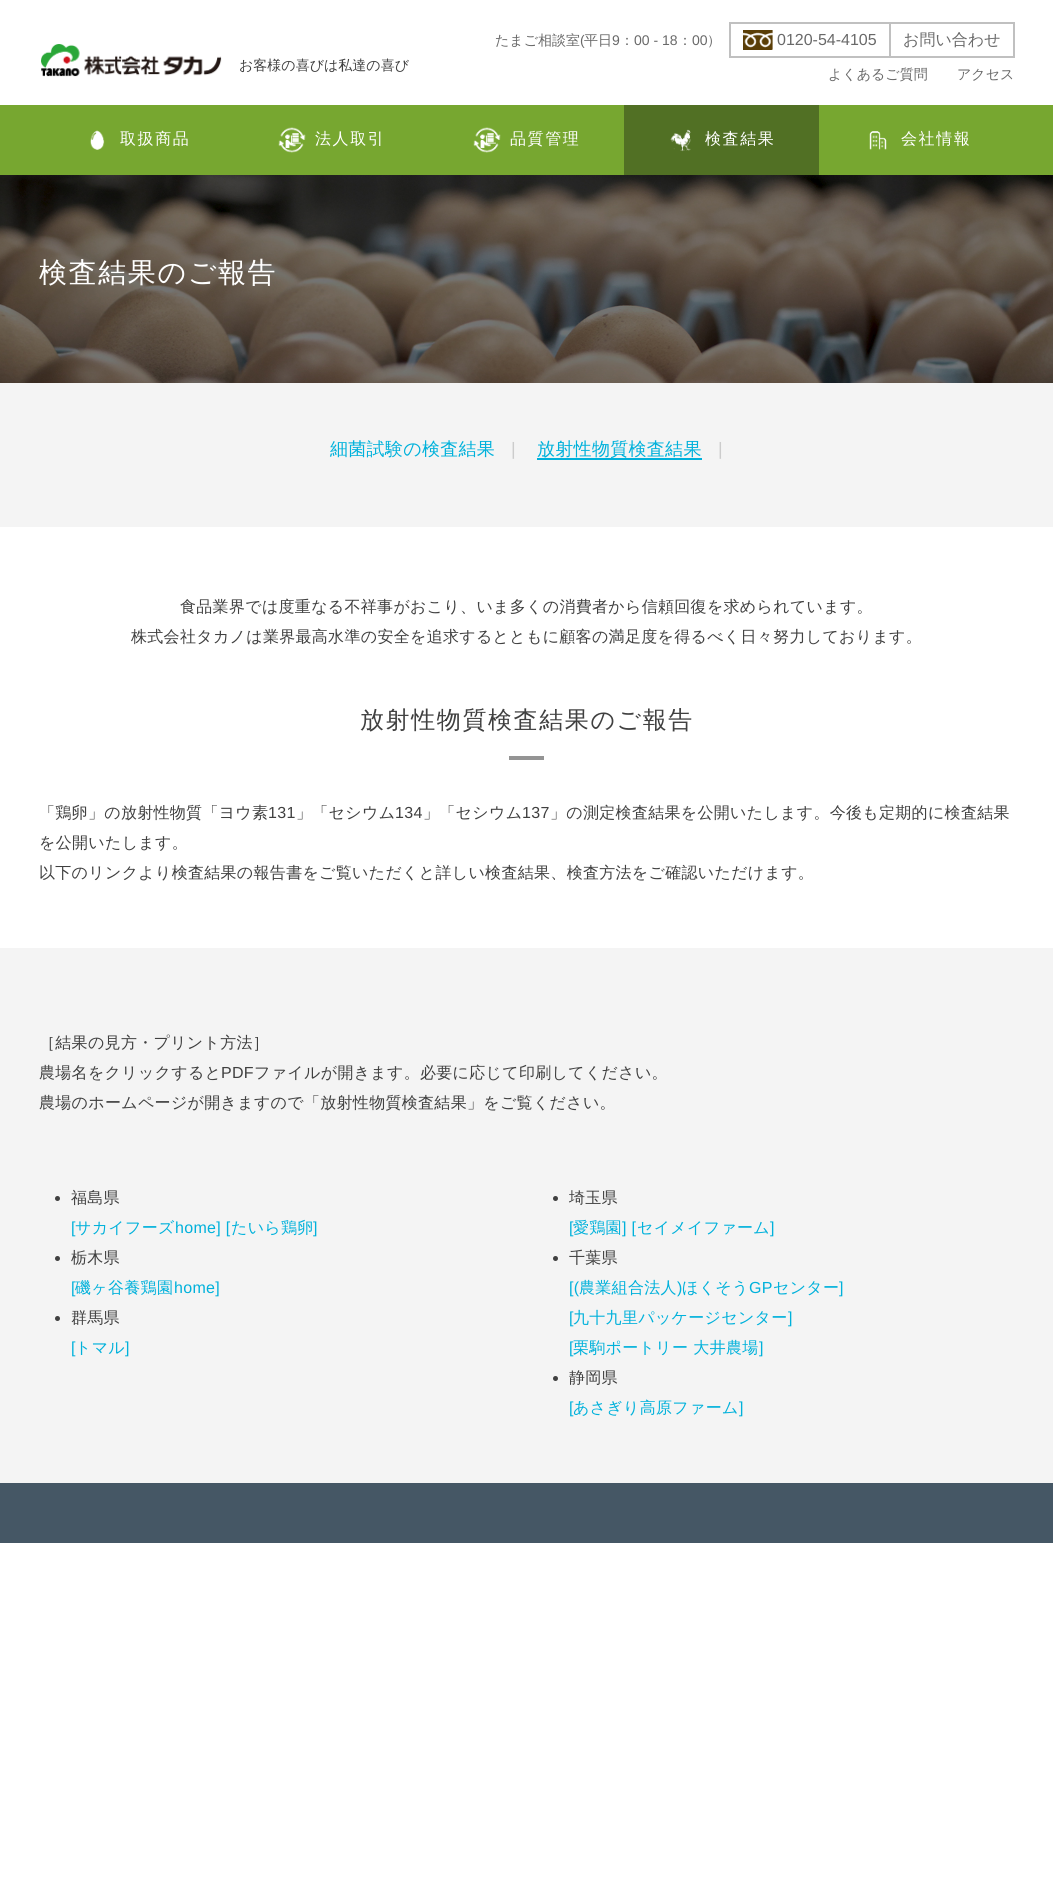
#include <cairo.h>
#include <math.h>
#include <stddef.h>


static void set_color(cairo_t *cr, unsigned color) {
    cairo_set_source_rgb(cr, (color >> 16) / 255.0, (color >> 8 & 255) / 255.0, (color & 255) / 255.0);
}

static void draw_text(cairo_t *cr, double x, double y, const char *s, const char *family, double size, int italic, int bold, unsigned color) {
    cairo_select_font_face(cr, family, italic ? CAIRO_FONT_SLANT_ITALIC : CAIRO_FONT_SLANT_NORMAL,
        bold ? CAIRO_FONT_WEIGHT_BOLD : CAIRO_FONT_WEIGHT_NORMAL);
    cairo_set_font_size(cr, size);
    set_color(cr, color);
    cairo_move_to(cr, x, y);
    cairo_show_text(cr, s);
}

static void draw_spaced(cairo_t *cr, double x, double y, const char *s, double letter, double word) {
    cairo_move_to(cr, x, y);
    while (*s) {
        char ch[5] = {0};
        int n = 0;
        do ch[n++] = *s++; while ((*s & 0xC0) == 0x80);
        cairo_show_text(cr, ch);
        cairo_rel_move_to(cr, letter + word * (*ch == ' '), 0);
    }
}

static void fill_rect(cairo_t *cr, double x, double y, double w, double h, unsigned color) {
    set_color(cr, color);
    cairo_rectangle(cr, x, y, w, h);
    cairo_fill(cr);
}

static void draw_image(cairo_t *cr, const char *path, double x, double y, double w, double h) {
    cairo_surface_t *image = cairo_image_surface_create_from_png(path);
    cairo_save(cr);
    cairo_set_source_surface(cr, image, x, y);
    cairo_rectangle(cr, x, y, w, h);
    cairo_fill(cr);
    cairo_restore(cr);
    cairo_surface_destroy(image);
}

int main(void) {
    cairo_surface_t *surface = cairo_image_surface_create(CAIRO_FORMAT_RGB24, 1053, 1892);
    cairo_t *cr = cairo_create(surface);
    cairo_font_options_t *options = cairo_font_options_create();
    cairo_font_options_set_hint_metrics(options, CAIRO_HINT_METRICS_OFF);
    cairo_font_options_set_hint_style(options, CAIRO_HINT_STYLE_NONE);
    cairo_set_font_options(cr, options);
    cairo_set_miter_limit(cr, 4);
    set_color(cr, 0xFFFFFF);
    cairo_paint(cr);
    draw_text(cr, 495, 45, "たまご相談室", "WenQuanYi Zen Hei Medium", 14, 0, 0, 0x696969);
    draw_text(cr, 580, 45, "(", "Liberation Sans", 14, 0, 0, 0x696969);
    draw_text(cr, 584, 45, "平日", "WenQuanYi Zen Hei Medium", 14, 0, 0, 0x696969);
    draw_text(cr, 612, 45, "9", "Liberation Sans", 14, 0, 0, 0x696969);
    draw_text(cr, 620, 45, "：", "WenQuanYi Zen Hei Medium", 14, 0, 0, 0x696969);
    draw_text(cr, 634, 45, "00 - 18", "Liberation Sans", 14, 0, 0, 0x696969);
    draw_text(cr, 678, 45, "：", "WenQuanYi Zen Hei Medium", 14, 0, 0, 0x696969);
    draw_text(cr, 692, 45, "00", "Liberation Sans", 14, 0, 0, 0x696969);
    draw_text(cr, 707, 45, "）", "WenQuanYi Zen Hei Medium", 14, 0, 0, 0x696969);
    fill_rect(cr, 889, 22, 126, 2, 0xC0C0C0);
    fill_rect(cr, 1013, 22, 2, 36, 0xC0C0C0);
    fill_rect(cr, 889, 56, 126, 2, 0xC0C0C0);
    fill_rect(cr, 889, 22, 2, 36, 0xC0C0C0);
    fill_rect(cr, 729, 22, 162, 2, 0xC0C0C0);
    fill_rect(cr, 729, 56, 162, 2, 0xC0C0C0);
    fill_rect(cr, 729, 22, 2, 36, 0xC0C0C0);
    draw_image(cr, "assets/img1.png", 743, 30, 30, 20);
    draw_text(cr, 777, 45, "0120-54-4105", "Liberation Sans", 16, 0, 0, 0x696969);
    draw_text(cr, 903, 45, "お問い合わせ", "WenQuanYi Zen Hei Medium", 16, 0, 0, 0x696969);
    draw_image(cr, "assets/img2.png", 41, 44, 181, 33);
    draw_text(cr, 239, 70, "お客様の喜びは私達の喜び", "WenQuanYi Zen Hei Medium", 14, 0, 0, 0x404040);
    draw_text(cr, 828, 79, "よくあるご質問", "WenQuanYi Zen Hei Medium", 14, 0, 0, 0x696969);
    draw_text(cr, 957, 79, "アクセス", "WenQuanYi Zen Hei Medium", 14, 0, 0, 0x696969);
    fill_rect(cr, 0, 105, 1053, 70, 0x77A730);
    draw_image(cr, "assets/img3.png", 90, 130, 15, 20);
    cairo_set_font_size(cr, 16);
    set_color(cr, 0xFFFFFF);
    draw_spaced(cr, 120, 144, "取扱商品", 1.6, 0);
    draw_image(cr, "assets/img4.png", 278, 127, 28, 26);
    draw_spaced(cr, 315, 144, "法人取引", 1.6, 0);
    draw_image(cr, "assets/img5.png", 473, 127, 28, 26);
    draw_spaced(cr, 510, 144, "品質管理", 1.6, 0);
    fill_rect(cr, 624, 105, 195, 70, 0x517024);
    draw_image(cr, "assets/img6.png", 670, 129, 21, 23);
    set_color(cr, 0xFFFFFF);
    draw_spaced(cr, 705, 144, "検査結果", 1.6, 0);
    draw_image(cr, "assets/img7.png", 869, 131, 18, 19);
    draw_spaced(cr, 901, 144, "会社情報", 1.6, 0);
    fill_rect(cr, 0, 383, 1053, 1100, 0xF4F4F4);
    draw_image(cr, "assets/img8.png", 0, 175, 1053, 208);
    cairo_set_font_size(cr, 28);
    set_color(cr, 0xFFFFFF);
    draw_spaced(cr, 39, 282, "検査結果のご報告", 1.6, 0);
    cairo_set_font_size(cr, 18);
    set_color(cr, 0x00B1DB);
    draw_spaced(cr, 330, 455, "細菌試験の検査結果", 0.3, 0);
    cairo_select_font_face(cr, "Liberation Sans", CAIRO_FONT_SLANT_NORMAL, CAIRO_FONT_WEIGHT_NORMAL);
    set_color(cr, 0xCCCCCC);
    draw_spaced(cr, 511, 455, "|", 0.3, 0);
    cairo_select_font_face(cr, "WenQuanYi Zen Hei Medium", CAIRO_FONT_SLANT_NORMAL, CAIRO_FONT_WEIGHT_NORMAL);
    set_color(cr, 0x00B1DB);
    draw_spaced(cr, 537, 455, "放射性物質検査結果", 0.3, 0);
    fill_rect(cr, 537, 458, 165, 2, 0x00B1DB);
    cairo_select_font_face(cr, "Liberation Sans", CAIRO_FONT_SLANT_NORMAL, CAIRO_FONT_WEIGHT_NORMAL);
    set_color(cr, 0xCCCCCC);
    draw_spaced(cr, 718, 455, "|", 0.3, 0);
    fill_rect(cr, 0, 527, 1053, 421, 0xFFFFFF);
    cairo_select_font_face(cr, "WenQuanYi Zen Hei Medium", CAIRO_FONT_SLANT_NORMAL, CAIRO_FONT_WEIGHT_NORMAL);
    cairo_set_font_size(cr, 16);
    set_color(cr, 0x404040);
    draw_spaced(cr, 180, 612, "食品業界では度重なる不祥事がおこり、いま多くの消費者から信頼回復を求められています。", 0.3, 0);
    draw_spaced(cr, 131, 642, "株式会社タカノは業界最高水準の安全を追求するとともに顧客の満足度を得るべく日々努力しております。", 0.3, 0);
    cairo_set_font_size(cr, 24);
    draw_spaced(cr, 360, 728, "放射性物質検査結果のご報告", 1.6, 0);
    fill_rect(cr, 509, 756, 35, 4, 0x949494);
    cairo_set_font_size(cr, 16);
    set_color(cr, 0x404040);
    draw_spaced(cr, 39, 818, "「鶏卵」の放射性物質「ヨウ素", 0.3, 0);
    cairo_select_font_face(cr, "Liberation Sans", CAIRO_FONT_SLANT_NORMAL, CAIRO_FONT_WEIGHT_NORMAL);
    draw_spaced(cr, 268, 818, "131", 0.3, 0);
    cairo_select_font_face(cr, "WenQuanYi Zen Hei Medium", CAIRO_FONT_SLANT_NORMAL, CAIRO_FONT_WEIGHT_NORMAL);
    draw_spaced(cr, 296, 818, "」「セシウム", 0.3, 0);
    cairo_select_font_face(cr, "Liberation Sans", CAIRO_FONT_SLANT_NORMAL, CAIRO_FONT_WEIGHT_NORMAL);
    draw_spaced(cr, 395, 818, "134", 0.3, 0);
    cairo_select_font_face(cr, "WenQuanYi Zen Hei Medium", CAIRO_FONT_SLANT_NORMAL, CAIRO_FONT_WEIGHT_NORMAL);
    draw_spaced(cr, 423, 818, "」「セシウム", 0.3, 0);
    cairo_select_font_face(cr, "Liberation Sans", CAIRO_FONT_SLANT_NORMAL, CAIRO_FONT_WEIGHT_NORMAL);
    draw_spaced(cr, 522, 818, "137", 0.3, 0);
    cairo_select_font_face(cr, "WenQuanYi Zen Hei Medium", CAIRO_FONT_SLANT_NORMAL, CAIRO_FONT_WEIGHT_NORMAL);
    draw_spaced(cr, 550, 818, "」の測定検査結果を公開いたします。今後も定期的に検査結果", 0.3, 0);
    draw_spaced(cr, 39, 848, "を公開いたします。", 0.3, 0);
    draw_spaced(cr, 39, 878, "以下のリンクより検査結果の報告書をご覧いただくと詳しい検査結果、検査方法をご確認いただけます。", 0.3, 0);
    draw_spaced(cr, 39, 1048, "［結果の見方・プリント方法］", 0.3, 0);
    draw_spaced(cr, 39, 1078, "農場名をクリックすると", 0.3, 0);
    cairo_select_font_face(cr, "Liberation Sans", CAIRO_FONT_SLANT_NORMAL, CAIRO_FONT_WEIGHT_NORMAL);
    draw_spaced(cr, 221, 1078, "PDF", 0.3, 0);
    cairo_select_font_face(cr, "WenQuanYi Zen Hei Medium", CAIRO_FONT_SLANT_NORMAL, CAIRO_FONT_WEIGHT_NORMAL);
    draw_spaced(cr, 254, 1078, "ファイルが開きます。必要に応じて印刷してください。", 0.3, 0);
    draw_spaced(cr, 39, 1108, "農場のホームページが開きますので「放射性物質検査結果」をご覧ください。", 0.3, 0);
    cairo_new_path(cr);
    cairo_arc(cr, 57.5, 1198.5, 2.5, 0, 2 * M_PI);
    cairo_fill(cr);
    draw_spaced(cr, 71, 1203, "福島県", 0.3, 0);
    cairo_select_font_face(cr, "Liberation Sans", CAIRO_FONT_SLANT_NORMAL, CAIRO_FONT_WEIGHT_NORMAL);
    set_color(cr, 0x00B1DB);
    draw_spaced(cr, 71, 1233, "[", 0.3, 0);
    cairo_select_font_face(cr, "WenQuanYi Zen Hei Medium", CAIRO_FONT_SLANT_NORMAL, CAIRO_FONT_WEIGHT_NORMAL);
    draw_spaced(cr, 75, 1233, "サカイフーズ", 0.3, 0);
    cairo_select_font_face(cr, "Liberation Sans", CAIRO_FONT_SLANT_NORMAL, CAIRO_FONT_WEIGHT_NORMAL);
    draw_spaced(cr, 175, 1233, "home] [", 0.3, 0);
    cairo_select_font_face(cr, "WenQuanYi Zen Hei Medium", CAIRO_FONT_SLANT_NORMAL, CAIRO_FONT_WEIGHT_NORMAL);
    draw_spaced(cr, 231, 1233, "たいら鶏卵", 0.3, 0);
    cairo_select_font_face(cr, "Liberation Sans", CAIRO_FONT_SLANT_NORMAL, CAIRO_FONT_WEIGHT_NORMAL);
    draw_spaced(cr, 313, 1233, "]", 0.3, 0);
    set_color(cr, 0x404040);
    cairo_new_path(cr);
    cairo_arc(cr, 57.5, 1258.5, 2.5, 0, 2 * M_PI);
    cairo_fill(cr);
    cairo_select_font_face(cr, "WenQuanYi Zen Hei Medium", CAIRO_FONT_SLANT_NORMAL, CAIRO_FONT_WEIGHT_NORMAL);
    draw_spaced(cr, 71, 1263, "栃木県", 0.3, 0);
    cairo_select_font_face(cr, "Liberation Sans", CAIRO_FONT_SLANT_NORMAL, CAIRO_FONT_WEIGHT_NORMAL);
    set_color(cr, 0x00B1DB);
    draw_spaced(cr, 71, 1293, "[", 0.3, 0);
    cairo_select_font_face(cr, "WenQuanYi Zen Hei Medium", CAIRO_FONT_SLANT_NORMAL, CAIRO_FONT_WEIGHT_NORMAL);
    draw_spaced(cr, 75, 1293, "磯ヶ谷養鶏園", 0.3, 0);
    cairo_select_font_face(cr, "Liberation Sans", CAIRO_FONT_SLANT_NORMAL, CAIRO_FONT_WEIGHT_NORMAL);
    draw_spaced(cr, 174, 1293, "home]", 0.3, 0);
    set_color(cr, 0x404040);
    cairo_new_path(cr);
    cairo_arc(cr, 57.5, 1318.5, 2.5, 0, 2 * M_PI);
    cairo_fill(cr);
    cairo_select_font_face(cr, "WenQuanYi Zen Hei Medium", CAIRO_FONT_SLANT_NORMAL, CAIRO_FONT_WEIGHT_NORMAL);
    draw_spaced(cr, 71, 1323, "群馬県", 0.3, 0);
    cairo_select_font_face(cr, "Liberation Sans", CAIRO_FONT_SLANT_NORMAL, CAIRO_FONT_WEIGHT_NORMAL);
    set_color(cr, 0x00B1DB);
    draw_spaced(cr, 71, 1353, "[", 0.3, 0);
    cairo_select_font_face(cr, "WenQuanYi Zen Hei Medium", CAIRO_FONT_SLANT_NORMAL, CAIRO_FONT_WEIGHT_NORMAL);
    draw_spaced(cr, 75, 1353, "トマル", 0.3, 0);
    cairo_select_font_face(cr, "Liberation Sans", CAIRO_FONT_SLANT_NORMAL, CAIRO_FONT_WEIGHT_NORMAL);
    draw_spaced(cr, 125, 1353, "]", 0.3, 0);
    set_color(cr, 0x404040);
    cairo_new_path(cr);
    cairo_arc(cr, 555.5, 1198.5, 2.5, 0, 2 * M_PI);
    cairo_fill(cr);
    cairo_select_font_face(cr, "WenQuanYi Zen Hei Medium", CAIRO_FONT_SLANT_NORMAL, CAIRO_FONT_WEIGHT_NORMAL);
    draw_spaced(cr, 569, 1203, "埼玉県", 0.3, 0);
    cairo_select_font_face(cr, "Liberation Sans", CAIRO_FONT_SLANT_NORMAL, CAIRO_FONT_WEIGHT_NORMAL);
    set_color(cr, 0x00B1DB);
    draw_spaced(cr, 569, 1233, "[", 0.3, 0);
    cairo_select_font_face(cr, "WenQuanYi Zen Hei Medium", CAIRO_FONT_SLANT_NORMAL, CAIRO_FONT_WEIGHT_NORMAL);
    draw_spaced(cr, 573, 1233, "愛鶏園", 0.3, 0);
    cairo_select_font_face(cr, "Liberation Sans", CAIRO_FONT_SLANT_NORMAL, CAIRO_FONT_WEIGHT_NORMAL);
    draw_spaced(cr, 622, 1233, "] [", 0.3, 0);
    cairo_select_font_face(cr, "WenQuanYi Zen Hei Medium", CAIRO_FONT_SLANT_NORMAL, CAIRO_FONT_WEIGHT_NORMAL);
    draw_spaced(cr, 637, 1233, "セイメイファーム", 0.3, 0);
    cairo_select_font_face(cr, "Liberation Sans", CAIRO_FONT_SLANT_NORMAL, CAIRO_FONT_WEIGHT_NORMAL);
    draw_spaced(cr, 770, 1233, "]", 0.3, 0);
    set_color(cr, 0x404040);
    cairo_new_path(cr);
    cairo_arc(cr, 555.5, 1258.5, 2.5, 0, 2 * M_PI);
    cairo_fill(cr);
    cairo_select_font_face(cr, "WenQuanYi Zen Hei Medium", CAIRO_FONT_SLANT_NORMAL, CAIRO_FONT_WEIGHT_NORMAL);
    draw_spaced(cr, 569, 1263, "千葉県", 0.3, 0);
    cairo_select_font_face(cr, "Liberation Sans", CAIRO_FONT_SLANT_NORMAL, CAIRO_FONT_WEIGHT_NORMAL);
    set_color(cr, 0x00B1DB);
    draw_spaced(cr, 569, 1293, "[(", 0.3, 0);
    cairo_select_font_face(cr, "WenQuanYi Zen Hei Medium", CAIRO_FONT_SLANT_NORMAL, CAIRO_FONT_WEIGHT_NORMAL);
    draw_spaced(cr, 579, 1293, "農業組合法人", 0.3, 0);
    cairo_select_font_face(cr, "Liberation Sans", CAIRO_FONT_SLANT_NORMAL, CAIRO_FONT_WEIGHT_NORMAL);
    draw_spaced(cr, 677, 1293, ")", 0.3, 0);
    cairo_select_font_face(cr, "WenQuanYi Zen Hei Medium", CAIRO_FONT_SLANT_NORMAL, CAIRO_FONT_WEIGHT_NORMAL);
    draw_spaced(cr, 682, 1293, "ほくそう", 0.3, 0);
    cairo_select_font_face(cr, "Liberation Sans", CAIRO_FONT_SLANT_NORMAL, CAIRO_FONT_WEIGHT_NORMAL);
    draw_spaced(cr, 749, 1293, "GP", 0.3, 0);
    cairo_select_font_face(cr, "WenQuanYi Zen Hei Medium", CAIRO_FONT_SLANT_NORMAL, CAIRO_FONT_WEIGHT_NORMAL);
    draw_spaced(cr, 773, 1293, "センター", 0.3, 0);
    cairo_select_font_face(cr, "Liberation Sans", CAIRO_FONT_SLANT_NORMAL, CAIRO_FONT_WEIGHT_NORMAL);
    draw_spaced(cr, 839, 1293, "]", 0.3, 0);
    draw_spaced(cr, 569, 1323, "[", 0.3, 0);
    cairo_select_font_face(cr, "WenQuanYi Zen Hei Medium", CAIRO_FONT_SLANT_NORMAL, CAIRO_FONT_WEIGHT_NORMAL);
    draw_spaced(cr, 573, 1323, "九十九里パッケージセンター", 0.3, 0);
    cairo_select_font_face(cr, "Liberation Sans", CAIRO_FONT_SLANT_NORMAL, CAIRO_FONT_WEIGHT_NORMAL);
    draw_spaced(cr, 788, 1323, "]", 0.3, 0);
    draw_spaced(cr, 569, 1353, "[", 0.3, 0);
    cairo_select_font_face(cr, "WenQuanYi Zen Hei Medium", CAIRO_FONT_SLANT_NORMAL, CAIRO_FONT_WEIGHT_NORMAL);
    draw_spaced(cr, 573, 1353, "栗駒ポートリー 大井農場", 0.3, 0);
    cairo_select_font_face(cr, "Liberation Sans", CAIRO_FONT_SLANT_NORMAL, CAIRO_FONT_WEIGHT_NORMAL);
    draw_spaced(cr, 759, 1353, "]", 0.3, 0);
    set_color(cr, 0x404040);
    cairo_new_path(cr);
    cairo_arc(cr, 555.5, 1378.5, 2.5, 0, 2 * M_PI);
    cairo_fill(cr);
    cairo_select_font_face(cr, "WenQuanYi Zen Hei Medium", CAIRO_FONT_SLANT_NORMAL, CAIRO_FONT_WEIGHT_NORMAL);
    draw_spaced(cr, 569, 1383, "静岡県", 0.3, 0);
    cairo_select_font_face(cr, "Liberation Sans", CAIRO_FONT_SLANT_NORMAL, CAIRO_FONT_WEIGHT_NORMAL);
    set_color(cr, 0x00B1DB);
    draw_spaced(cr, 569, 1413, "[", 0.3, 0);
    cairo_select_font_face(cr, "WenQuanYi Zen Hei Medium", CAIRO_FONT_SLANT_NORMAL, CAIRO_FONT_WEIGHT_NORMAL);
    draw_spaced(cr, 573, 1413, "あさぎり高原ファーム", 0.3, 0);
    cairo_select_font_face(cr, "Liberation Sans", CAIRO_FONT_SLANT_NORMAL, CAIRO_FONT_WEIGHT_NORMAL);
    draw_spaced(cr, 739, 1413, "]", 0.3, 0);
    fill_rect(cr, 0, 1483, 1053, 60, 0x455765);
    cairo_surface_write_to_png(surface, "output.png");
    cairo_font_options_destroy(options);
    cairo_destroy(cr);
    cairo_surface_destroy(surface);
    return 0;
}
